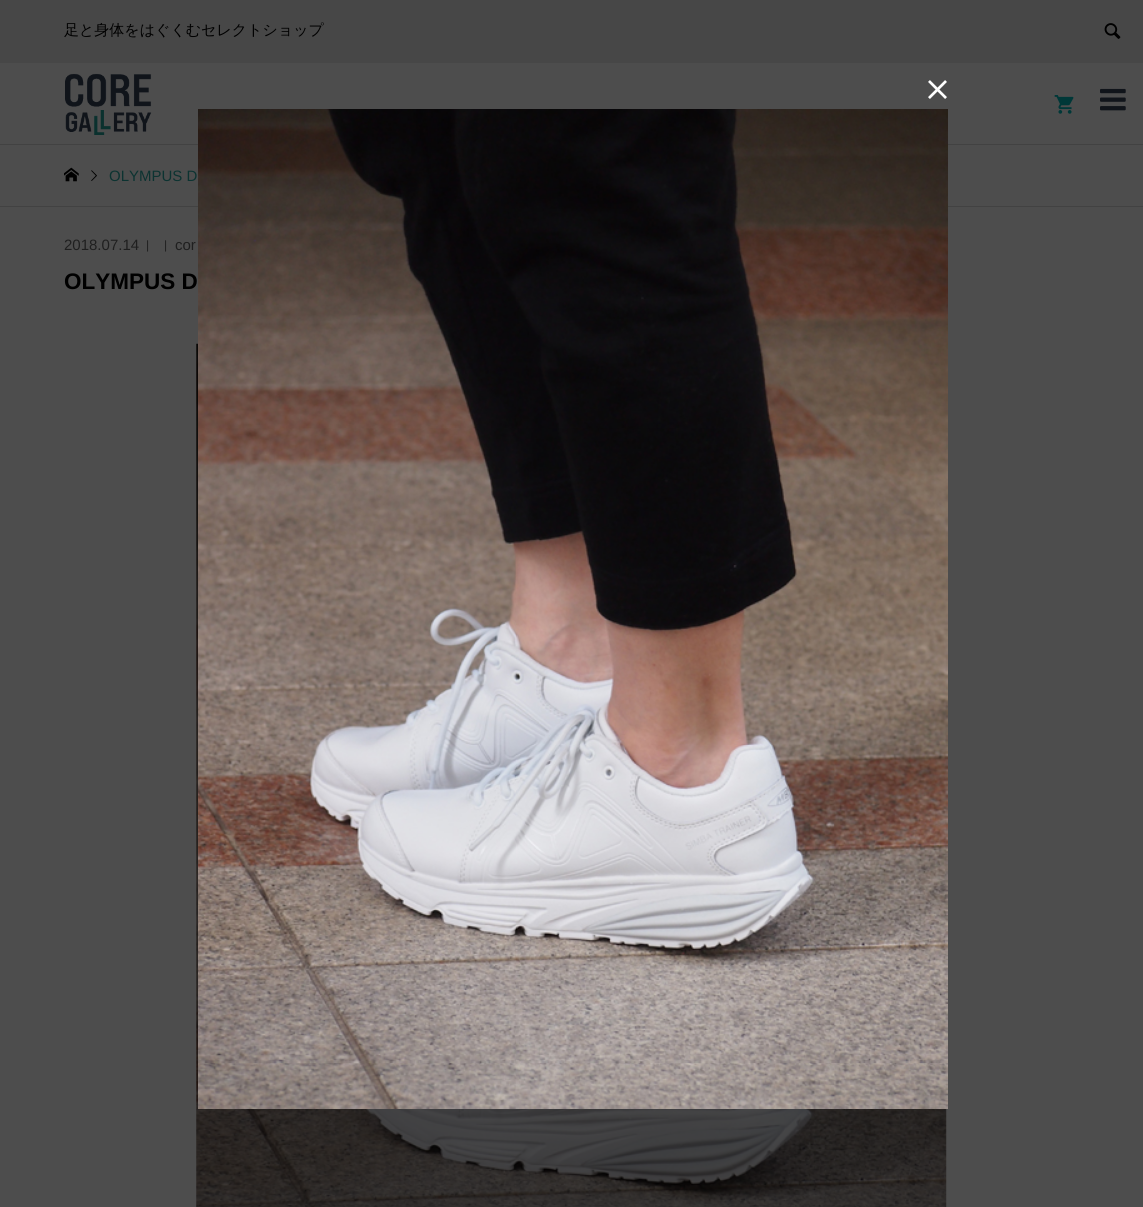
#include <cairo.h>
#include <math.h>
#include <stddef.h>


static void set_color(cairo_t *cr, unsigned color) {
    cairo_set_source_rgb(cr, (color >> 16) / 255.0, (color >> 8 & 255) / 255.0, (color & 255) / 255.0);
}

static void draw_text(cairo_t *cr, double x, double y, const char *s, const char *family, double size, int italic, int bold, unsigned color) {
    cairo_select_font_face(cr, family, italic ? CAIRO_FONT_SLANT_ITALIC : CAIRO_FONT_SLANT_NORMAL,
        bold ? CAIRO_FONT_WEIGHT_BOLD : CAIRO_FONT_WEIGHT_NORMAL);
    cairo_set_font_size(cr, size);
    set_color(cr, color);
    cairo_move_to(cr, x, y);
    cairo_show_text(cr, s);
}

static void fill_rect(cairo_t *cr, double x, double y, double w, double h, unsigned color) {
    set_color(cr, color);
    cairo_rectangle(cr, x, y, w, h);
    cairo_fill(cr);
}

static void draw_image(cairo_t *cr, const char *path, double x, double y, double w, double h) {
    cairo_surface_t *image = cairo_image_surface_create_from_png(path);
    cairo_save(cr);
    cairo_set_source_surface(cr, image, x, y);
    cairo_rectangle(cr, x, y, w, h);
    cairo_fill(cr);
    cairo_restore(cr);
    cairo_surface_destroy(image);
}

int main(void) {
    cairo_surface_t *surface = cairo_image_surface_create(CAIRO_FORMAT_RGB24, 1143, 1207);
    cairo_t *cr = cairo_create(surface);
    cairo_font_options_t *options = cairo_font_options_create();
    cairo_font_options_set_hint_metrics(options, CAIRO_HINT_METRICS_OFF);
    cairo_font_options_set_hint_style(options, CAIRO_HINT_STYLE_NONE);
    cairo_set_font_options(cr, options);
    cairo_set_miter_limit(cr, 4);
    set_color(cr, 0x4D4D4D);
    cairo_paint(cr);
    fill_rect(cr, 0, 0, 1143, 63, 0x474747);
    draw_text(cr, 64, 35, "足と身体をはぐくむセレクトショップ", "WenQuanYi Zen Hei Medium", 15, 0, 0, 0x000000);
    draw_image(cr, "assets/img1.png", 1104, 23, 17, 16);
    draw_image(cr, "assets/img2.png", 65, 73, 87, 62);
    draw_image(cr, "assets/img3.png", 1054, 95, 20, 19);
    draw_image(cr, "assets/img4.png", 1100, 88, 26, 23);
    fill_rect(cr, 0, 144, 1143, 1, 0x424242);
    fill_rect(cr, 0, 206, 1143, 1, 0x424242);
    draw_image(cr, "assets/img5.png", 64, 167, 15, 15);
    draw_image(cr, "assets/img6.png", 91, 170, 6, 11);
    draw_text(cr, 109, 181, "OLYMPUS D", "Liberation Sans", 15, 0, 0, 0x0C3331);
    draw_text(cr, 64, 250, "2018.07.14", "Liberation Sans", 15, 0, 0, 0x1F1F1F);
    draw_text(cr, 146, 249, "|", "Liberation Sans", 12, 0, 0, 0x1F1F1F);
    draw_text(cr, 164, 249, "|", "Liberation Sans", 12, 0, 0, 0x1F1F1F);
    draw_text(cr, 175, 250, "cor", "Liberation Sans", 15, 0, 0, 0x1F1F1F);
    draw_text(cr, 64, 289, "OLYMPUS D", "Liberation Sans", 22.5, 0, 1, 0x000000);
    draw_image(cr, "assets/img7.png", 196, 343, 751, 864);
    draw_image(cr, "assets/img8.png", 928, 80, 19, 19);
    draw_image(cr, "assets/img9.png", 198, 109, 750, 1000);
    cairo_surface_write_to_png(surface, "output.png");
    cairo_font_options_destroy(options);
    cairo_destroy(cr);
    cairo_surface_destroy(surface);
    return 0;
}
